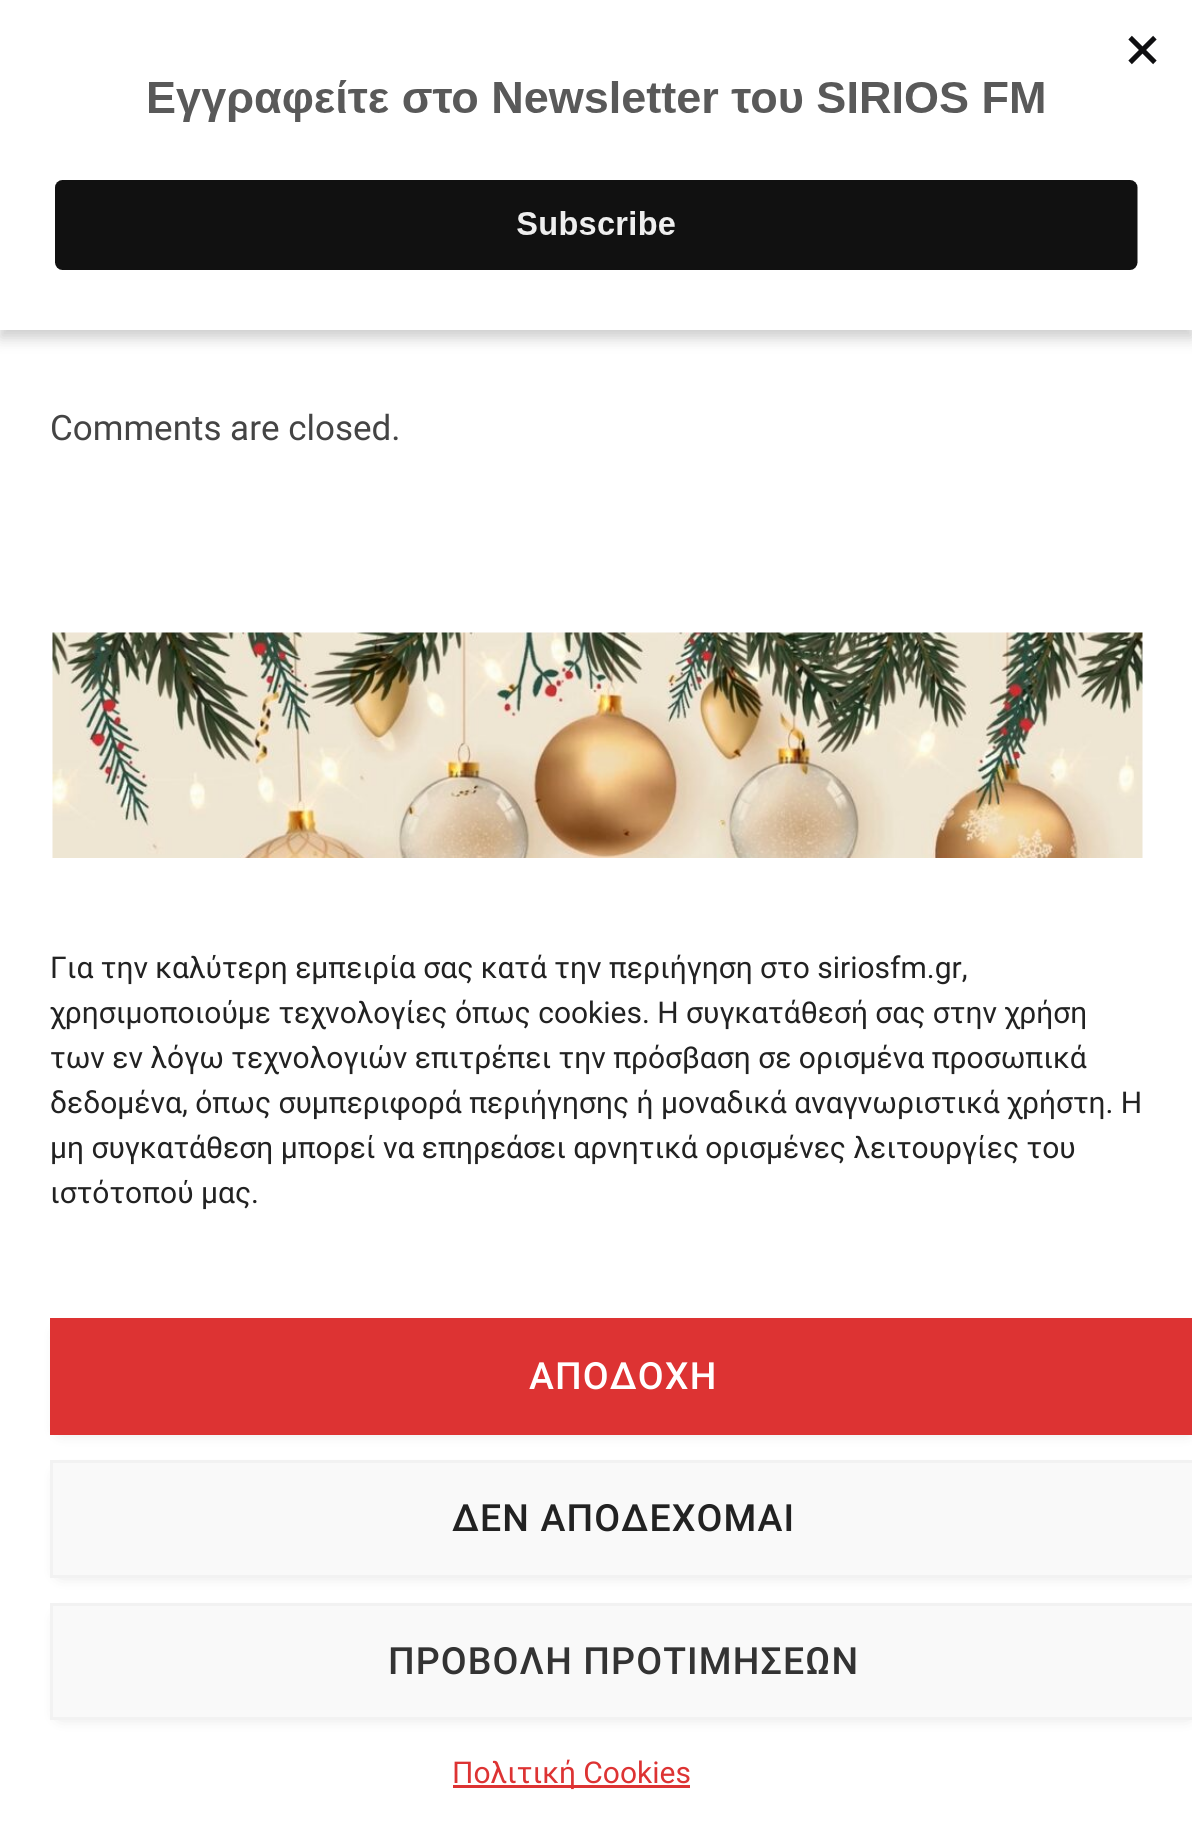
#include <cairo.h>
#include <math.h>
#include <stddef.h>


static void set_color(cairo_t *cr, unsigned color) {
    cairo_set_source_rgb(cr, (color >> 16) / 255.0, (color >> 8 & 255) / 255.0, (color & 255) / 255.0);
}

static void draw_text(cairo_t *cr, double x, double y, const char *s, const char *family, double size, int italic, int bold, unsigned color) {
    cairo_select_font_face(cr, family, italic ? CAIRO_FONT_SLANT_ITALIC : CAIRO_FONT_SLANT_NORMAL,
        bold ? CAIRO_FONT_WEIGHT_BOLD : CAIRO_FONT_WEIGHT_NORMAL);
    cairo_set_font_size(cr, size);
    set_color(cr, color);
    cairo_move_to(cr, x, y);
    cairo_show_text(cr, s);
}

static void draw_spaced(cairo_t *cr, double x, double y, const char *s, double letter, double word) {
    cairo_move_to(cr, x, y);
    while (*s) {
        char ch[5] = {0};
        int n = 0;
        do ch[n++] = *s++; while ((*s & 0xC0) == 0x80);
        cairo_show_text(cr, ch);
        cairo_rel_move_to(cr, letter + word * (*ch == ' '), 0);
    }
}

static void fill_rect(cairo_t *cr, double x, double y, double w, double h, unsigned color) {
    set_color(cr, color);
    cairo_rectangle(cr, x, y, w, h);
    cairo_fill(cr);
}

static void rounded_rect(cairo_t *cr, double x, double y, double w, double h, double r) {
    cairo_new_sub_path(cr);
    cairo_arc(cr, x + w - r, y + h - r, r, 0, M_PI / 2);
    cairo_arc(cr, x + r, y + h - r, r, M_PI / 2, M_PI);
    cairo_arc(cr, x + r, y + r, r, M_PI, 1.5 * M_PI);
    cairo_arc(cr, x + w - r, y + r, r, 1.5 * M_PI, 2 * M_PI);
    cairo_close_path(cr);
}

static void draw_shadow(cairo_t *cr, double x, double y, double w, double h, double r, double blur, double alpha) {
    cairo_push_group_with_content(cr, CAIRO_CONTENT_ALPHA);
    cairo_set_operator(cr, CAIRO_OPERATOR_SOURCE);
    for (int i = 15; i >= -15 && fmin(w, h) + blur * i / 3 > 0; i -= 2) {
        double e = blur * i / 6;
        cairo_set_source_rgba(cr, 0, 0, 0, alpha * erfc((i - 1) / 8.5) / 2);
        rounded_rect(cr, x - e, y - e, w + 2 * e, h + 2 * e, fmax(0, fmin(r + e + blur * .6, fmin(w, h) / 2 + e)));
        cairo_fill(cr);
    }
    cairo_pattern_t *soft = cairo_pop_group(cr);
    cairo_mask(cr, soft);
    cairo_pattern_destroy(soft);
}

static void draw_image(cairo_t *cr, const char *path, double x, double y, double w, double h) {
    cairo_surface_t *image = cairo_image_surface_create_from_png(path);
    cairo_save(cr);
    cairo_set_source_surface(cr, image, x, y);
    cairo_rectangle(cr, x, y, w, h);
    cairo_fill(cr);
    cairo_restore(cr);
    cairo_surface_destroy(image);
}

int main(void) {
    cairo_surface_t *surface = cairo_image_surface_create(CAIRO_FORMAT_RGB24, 1192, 1834);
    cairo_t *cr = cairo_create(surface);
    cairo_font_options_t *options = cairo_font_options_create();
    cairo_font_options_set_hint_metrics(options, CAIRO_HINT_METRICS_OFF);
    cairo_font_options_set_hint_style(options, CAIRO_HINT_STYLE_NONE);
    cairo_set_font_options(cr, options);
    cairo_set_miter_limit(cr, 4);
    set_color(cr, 0xFFFFFF);
    cairo_paint(cr);
    set_color(cr, 0x000000);
    draw_shadow(cr, 0, 8, 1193, 330, 0, 7.5, 0.2);
    fill_rect(cr, 0, 0, 1192, 330, 0xFFFFFF);
    draw_image(cr, "assets/img1.png", 55, 35, 1102, 235);
    draw_text(cr, 50, 440, "Comments are closed.", "Roboto", 35, 0, 0, 0x444444);
    draw_image(cr, "assets/img2.png", 52, 632, 1091, 226);
    draw_text(cr, 50, 978, "Για την καλύτερη εμπειρία σας κατά την περιήγηση στο siriosfm.gr,", "Roboto", 30, 0, 0, 0x222222);
    draw_text(cr, 50, 1023, "χρησιμοποιούμε τεχνολογίες όπως cookies. Η συγκατάθεσή σας στην χρήση", "Roboto", 30, 0, 0, 0x222222);
    draw_text(cr, 50, 1068, "των εν λόγω τεχνολογιών επιτρέπει την πρόσβαση σε ορισμένα προσωπικά", "Roboto", 30, 0, 0, 0x222222);
    draw_text(cr, 50, 1113, "δεδομένα, όπως συμπεριφορά περιήγησης ή μοναδικά αναγνωριστικά χρήστη. Η", "Roboto", 30, 0, 0, 0x222222);
    draw_text(cr, 50, 1158, "μη συγκατάθεση μπορεί να επηρεάσει αρνητικά ορισμένες λειτουργίες του", "Roboto", 30, 0, 0, 0x222222);
    draw_text(cr, 50, 1203, "ιστότοπού μας.", "Roboto", 30, 0, 0, 0x222222);
    set_color(cr, 0x000000);
    draw_shadow(cr, 60, 1333, 1128, 97, 0, 9, 0.16);
    fill_rect(cr, 50, 1318, 1142, 117, 0xDD3333);
    cairo_select_font_face(cr, "Roboto Medium", CAIRO_FONT_SLANT_NORMAL, CAIRO_FONT_WEIGHT_NORMAL);
    cairo_set_font_size(cr, 37.5);
    set_color(cr, 0xFFFFFF);
    draw_spaced(cr, 529, 1389, "ΑΠΟΔΟΧΗ", 1.1, 0);
    set_color(cr, 0x000000);
    draw_shadow(cr, 60, 1475, 1128, 98, 0, 9, 0.16);
    set_color(cr, 0xF9F9F9);
    cairo_rectangle(cr, 51.5, 1461.5, 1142, 115);
    cairo_fill_preserve(cr);
    set_color(cr, 0xF2F2F2);
    cairo_set_line_width(cr, 3);
    cairo_stroke(cr);
    set_color(cr, 0x222222);
    draw_spaced(cr, 452, 1531, "ΔΕΝ ΑΠΟΔΕΧΟΜΑΙ", 1.1, 0);
    set_color(cr, 0x000000);
    draw_shadow(cr, 60, 1618, 1128, 97, 0, 9, 0.16);
    set_color(cr, 0xF9F9F9);
    cairo_rectangle(cr, 51.5, 1604.5, 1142, 114);
    cairo_fill_preserve(cr);
    set_color(cr, 0xF2F2F2);
    cairo_stroke(cr);
    set_color(cr, 0x333333);
    draw_spaced(cr, 388, 1674, "ΠΡΟΒΟΛΗ ΠΡΟΤΙΜΗΣΕΩΝ", 1.1, 0);
    fill_rect(cr, 453, 1785, 237, 3, 0xDD3333);
    draw_text(cr, 452, 1783, "Πολιτική Cookies", "Roboto", 30, 0, 0, 0xDD3333);
    cairo_surface_write_to_png(surface, "output.png");
    cairo_font_options_destroy(options);
    cairo_destroy(cr);
    cairo_surface_destroy(surface);
    return 0;
}
